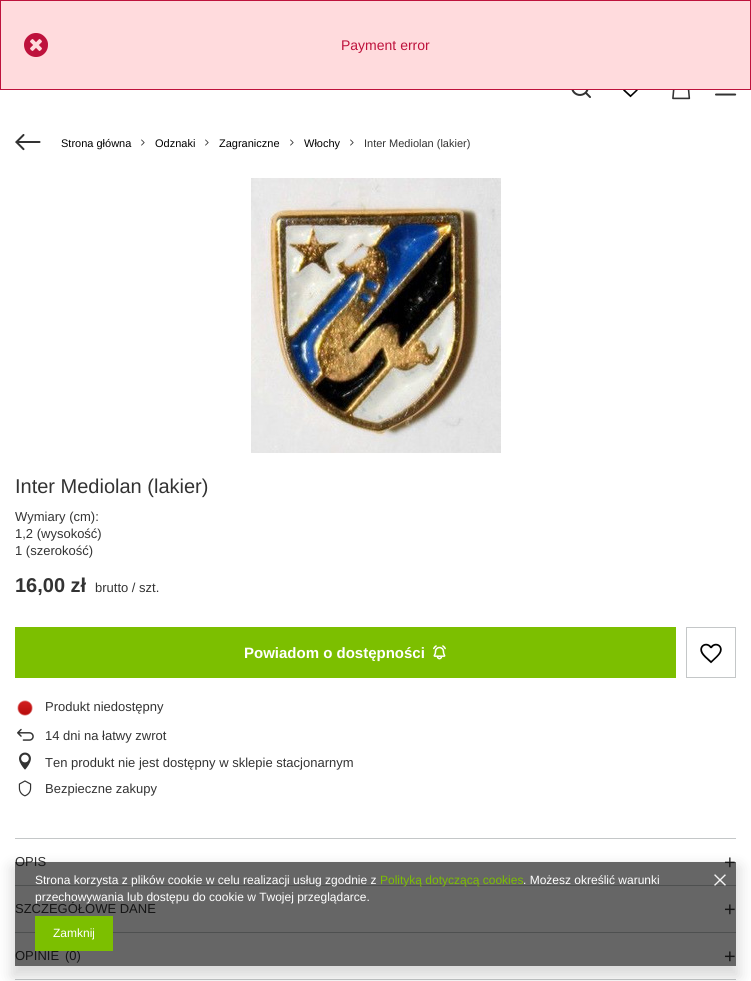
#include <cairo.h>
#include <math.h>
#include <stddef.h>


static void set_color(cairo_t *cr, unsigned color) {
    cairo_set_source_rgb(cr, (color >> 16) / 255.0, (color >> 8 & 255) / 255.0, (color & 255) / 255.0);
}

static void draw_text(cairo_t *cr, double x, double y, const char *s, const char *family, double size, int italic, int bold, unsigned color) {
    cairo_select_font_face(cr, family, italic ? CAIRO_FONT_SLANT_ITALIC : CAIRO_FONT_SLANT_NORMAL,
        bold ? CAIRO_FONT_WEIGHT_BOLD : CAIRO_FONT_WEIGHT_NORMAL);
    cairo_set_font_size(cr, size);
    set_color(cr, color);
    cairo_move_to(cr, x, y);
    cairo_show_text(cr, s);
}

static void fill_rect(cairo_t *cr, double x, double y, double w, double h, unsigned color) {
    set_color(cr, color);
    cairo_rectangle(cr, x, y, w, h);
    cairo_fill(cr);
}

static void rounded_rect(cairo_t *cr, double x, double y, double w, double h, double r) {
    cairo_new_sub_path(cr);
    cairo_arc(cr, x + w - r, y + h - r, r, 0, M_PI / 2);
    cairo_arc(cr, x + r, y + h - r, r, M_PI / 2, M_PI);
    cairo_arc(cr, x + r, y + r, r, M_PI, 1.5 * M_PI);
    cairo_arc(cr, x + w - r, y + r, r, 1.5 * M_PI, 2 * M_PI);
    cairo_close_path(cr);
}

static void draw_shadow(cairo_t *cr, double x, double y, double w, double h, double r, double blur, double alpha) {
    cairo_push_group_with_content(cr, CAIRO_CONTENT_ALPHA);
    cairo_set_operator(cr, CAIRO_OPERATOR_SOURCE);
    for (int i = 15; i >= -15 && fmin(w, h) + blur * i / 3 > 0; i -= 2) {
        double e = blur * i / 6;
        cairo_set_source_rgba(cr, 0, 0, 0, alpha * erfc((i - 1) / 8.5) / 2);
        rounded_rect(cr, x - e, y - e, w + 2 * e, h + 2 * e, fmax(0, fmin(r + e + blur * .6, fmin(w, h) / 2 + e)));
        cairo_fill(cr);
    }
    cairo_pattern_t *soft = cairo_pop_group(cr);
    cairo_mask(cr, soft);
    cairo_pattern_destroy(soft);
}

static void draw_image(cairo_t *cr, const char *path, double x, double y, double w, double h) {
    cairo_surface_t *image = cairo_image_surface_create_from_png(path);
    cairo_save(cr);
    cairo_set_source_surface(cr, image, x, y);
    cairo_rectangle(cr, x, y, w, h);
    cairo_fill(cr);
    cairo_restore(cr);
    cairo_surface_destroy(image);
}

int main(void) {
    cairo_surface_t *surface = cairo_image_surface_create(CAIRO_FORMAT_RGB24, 751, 981);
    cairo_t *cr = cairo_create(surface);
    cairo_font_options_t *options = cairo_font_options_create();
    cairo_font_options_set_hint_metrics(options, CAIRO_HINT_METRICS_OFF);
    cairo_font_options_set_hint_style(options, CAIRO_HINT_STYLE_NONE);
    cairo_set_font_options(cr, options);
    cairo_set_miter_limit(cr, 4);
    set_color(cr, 0xFFFFFF);
    cairo_paint(cr);
    set_color(cr, 0xFFDBDD);
    cairo_rectangle(cr, 0.5, 0.5, 750, 89);
    cairo_fill_preserve(cr);
    set_color(cr, 0xBE123C);
    cairo_set_line_width(cr, 1);
    cairo_stroke(cr);
    draw_image(cr, "assets/img1.png", 24, 33, 24, 24);
    draw_text(cr, 341, 50, "Payment error", "Liberation Sans", 14, 0, 0, 0xBE123C);
    draw_image(cr, "assets/img2.png", 571, 90, 20, 8);
    draw_image(cr, "assets/img3.png", 623, 90, 15, 8);
    draw_image(cr, "assets/img4.png", 672, 90, 19, 10);
    draw_image(cr, "assets/img5.png", 715, 93, 22, 3);
    draw_image(cr, "assets/img6.png", 15, 134, 26, 17);
    draw_text(cr, 61, 147, "Strona główna", "Liberation Sans", 11, 0, 0, 0x000000);
    draw_image(cr, "assets/img7.png", 141, 139, 4, 7);
    draw_text(cr, 155, 147, "Odznaki", "Liberation Sans", 11, 0, 0, 0x000000);
    draw_image(cr, "assets/img7.png", 205, 139, 4, 7);
    draw_text(cr, 219, 147, "Zagraniczne", "Liberation Sans", 11, 0, 0, 0x000000);
    draw_image(cr, "assets/img7.png", 290, 139, 4, 7);
    draw_text(cr, 304, 147, "Włochy", "Liberation Sans", 11, 0, 0, 0x000000);
    draw_image(cr, "assets/img7.png", 350, 139, 4, 7);
    draw_text(cr, 364, 147, "Inter Mediolan (lakier)", "Liberation Sans", 11, 0, 0, 0x333333);
    draw_image(cr, "assets/img8.png", 251, 178, 250, 275);
    draw_text(cr, 15, 493, "Inter Mediolan (lakier)", "Liberation Sans", 20, 0, 0, 0x333333);
    draw_text(cr, 15, 521, "Wymiary (cm):", "Liberation Sans", 13, 0, 0, 0x333333);
    draw_text(cr, 15, 538, "1,2 (wysokość)", "Liberation Sans", 13, 0, 0, 0x333333);
    draw_text(cr, 15, 555, "1 (szerokość)", "Liberation Sans", 13, 0, 0, 0x333333);
    draw_text(cr, 15, 592, "16,00 zł", "Liberation Sans", 20, 0, 1, 0x333333);
    draw_text(cr, 95, 592, "brutto / szt.", "Liberation Sans", 13, 0, 0, 0x333333);
    fill_rect(cr, 15, 627, 661, 51, 0x7CBF00);
    draw_text(cr, 244, 658, "Powiadom o dostępności", "Liberation Sans", 15, 0, 1, 0xFFFFFF);
    draw_image(cr, "assets/img9.png", 433, 645, 13, 15);
    cairo_rectangle(cr, 686.5, 627.5, 49, 50);
    set_color(cr, 0xC4C7C8);
    cairo_stroke(cr);
    draw_image(cr, "assets/img10.png", 700, 643, 22, 21);
    draw_image(cr, "assets/img11.png", 17, 700, 16, 16);
    draw_text(cr, 45, 711, "Produkt niedostępny", "Liberation Sans", 13, 0, 0, 0x333333);
    draw_image(cr, "assets/img12.png", 17, 728, 17, 13);
    draw_text(cr, 45, 740, "14 dni na łatwy zwrot", "Liberation Sans", 13, 0, 0, 0x333333);
    draw_image(cr, "assets/img13.png", 19, 752, 12, 18);
    draw_text(cr, 45, 767, "Ten produkt nie jest dostępny w sklepie stacjonarnym", "Liberation Sans", 13, 0, 0, 0x333333);
    draw_image(cr, "assets/img14.png", 18, 780, 14, 17);
    draw_text(cr, 45, 793, "Bezpieczne zakupy", "Liberation Sans", 13, 0, 0, 0x333333);
    fill_rect(cr, 15, 838, 721, 1, 0xC4C7C8);
    draw_text(cr, 15, 866, "OPIS", "Liberation Sans", 13, 0, 0, 0x333333);
    draw_text(cr, 724, 869, "+", "Liberation Sans", 20, 0, 0, 0x333333);
    fill_rect(cr, 15, 885, 721, 1, 0xC4C7C8);
    draw_text(cr, 15, 913, "SZCZEGÓŁOWE DANE", "Liberation Sans", 13, 0, 0, 0x333333);
    draw_text(cr, 724, 916, "+", "Liberation Sans", 20, 0, 0, 0x333333);
    fill_rect(cr, 15, 979, 721, 1, 0xC4C7C8);
    fill_rect(cr, 15, 932, 721, 1, 0xC4C7C8);
    draw_text(cr, 15, 960, "OPINIE", "Liberation Sans", 13, 0, 0, 0x333333);
    draw_text(cr, 65, 960, "(0)", "Liberation Sans", 13, 0, 0, 0x333333);
    draw_text(cr, 724, 963, "+", "Liberation Sans", 20, 0, 0, 0x333333);
    cairo_save(cr);
    cairo_set_fill_rule(cr, CAIRO_FILL_RULE_EVEN_ODD);
    cairo_new_path(cr);
    cairo_move_to(cr, 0, 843);
    cairo_line_to(cr, 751, 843);
    cairo_line_to(cr, 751, 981);
    cairo_line_to(cr, 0, 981);
    cairo_close_path(cr);
    cairo_move_to(cr, 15, 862);
    cairo_line_to(cr, 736, 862);
    cairo_line_to(cr, 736, 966);
    cairo_line_to(cr, 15, 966);
    cairo_close_path(cr);
    cairo_clip(cr);
    set_color(cr, 0x000000);
    draw_shadow(cr, 12, 867, 727, 110, 0, 7.5, 0.15);
    cairo_restore(cr);
    cairo_set_source_rgba(cr, 0, 0, 0, 0.6);
    cairo_rectangle(cr, 15, 862, 721, 104);
    cairo_fill(cr);
    draw_text(cr, 35, 884, "Strona korzysta z plików cookie w celu realizacji usług zgodnie z", "Liberation Sans", 12, 0, 0, 0xFFFFFF);
    draw_text(cr, 380, 884, "Polityką dotyczącą cookies", "Liberation Sans", 12, 0, 0, 0x7CBF00);
    draw_text(cr, 523, 884, ". Możesz określić warunki", "Liberation Sans", 12, 0, 0, 0xFFFFFF);
    draw_text(cr, 35, 901, "przechowywania lub dostępu do cookie w Twojej przeglądarce.", "Liberation Sans", 12, 0, 0, 0xFFFFFF);
    fill_rect(cr, 35, 916, 78, 35, 0x7CBF00);
    draw_text(cr, 53, 937, "Zamknij", "Liberation Sans", 12, 0, 0, 0xFFFFFF);
    draw_image(cr, "assets/img15.png", 714, 874, 12, 12);
    cairo_surface_write_to_png(surface, "output.png");
    cairo_font_options_destroy(options);
    cairo_destroy(cr);
    cairo_surface_destroy(surface);
    return 0;
}
